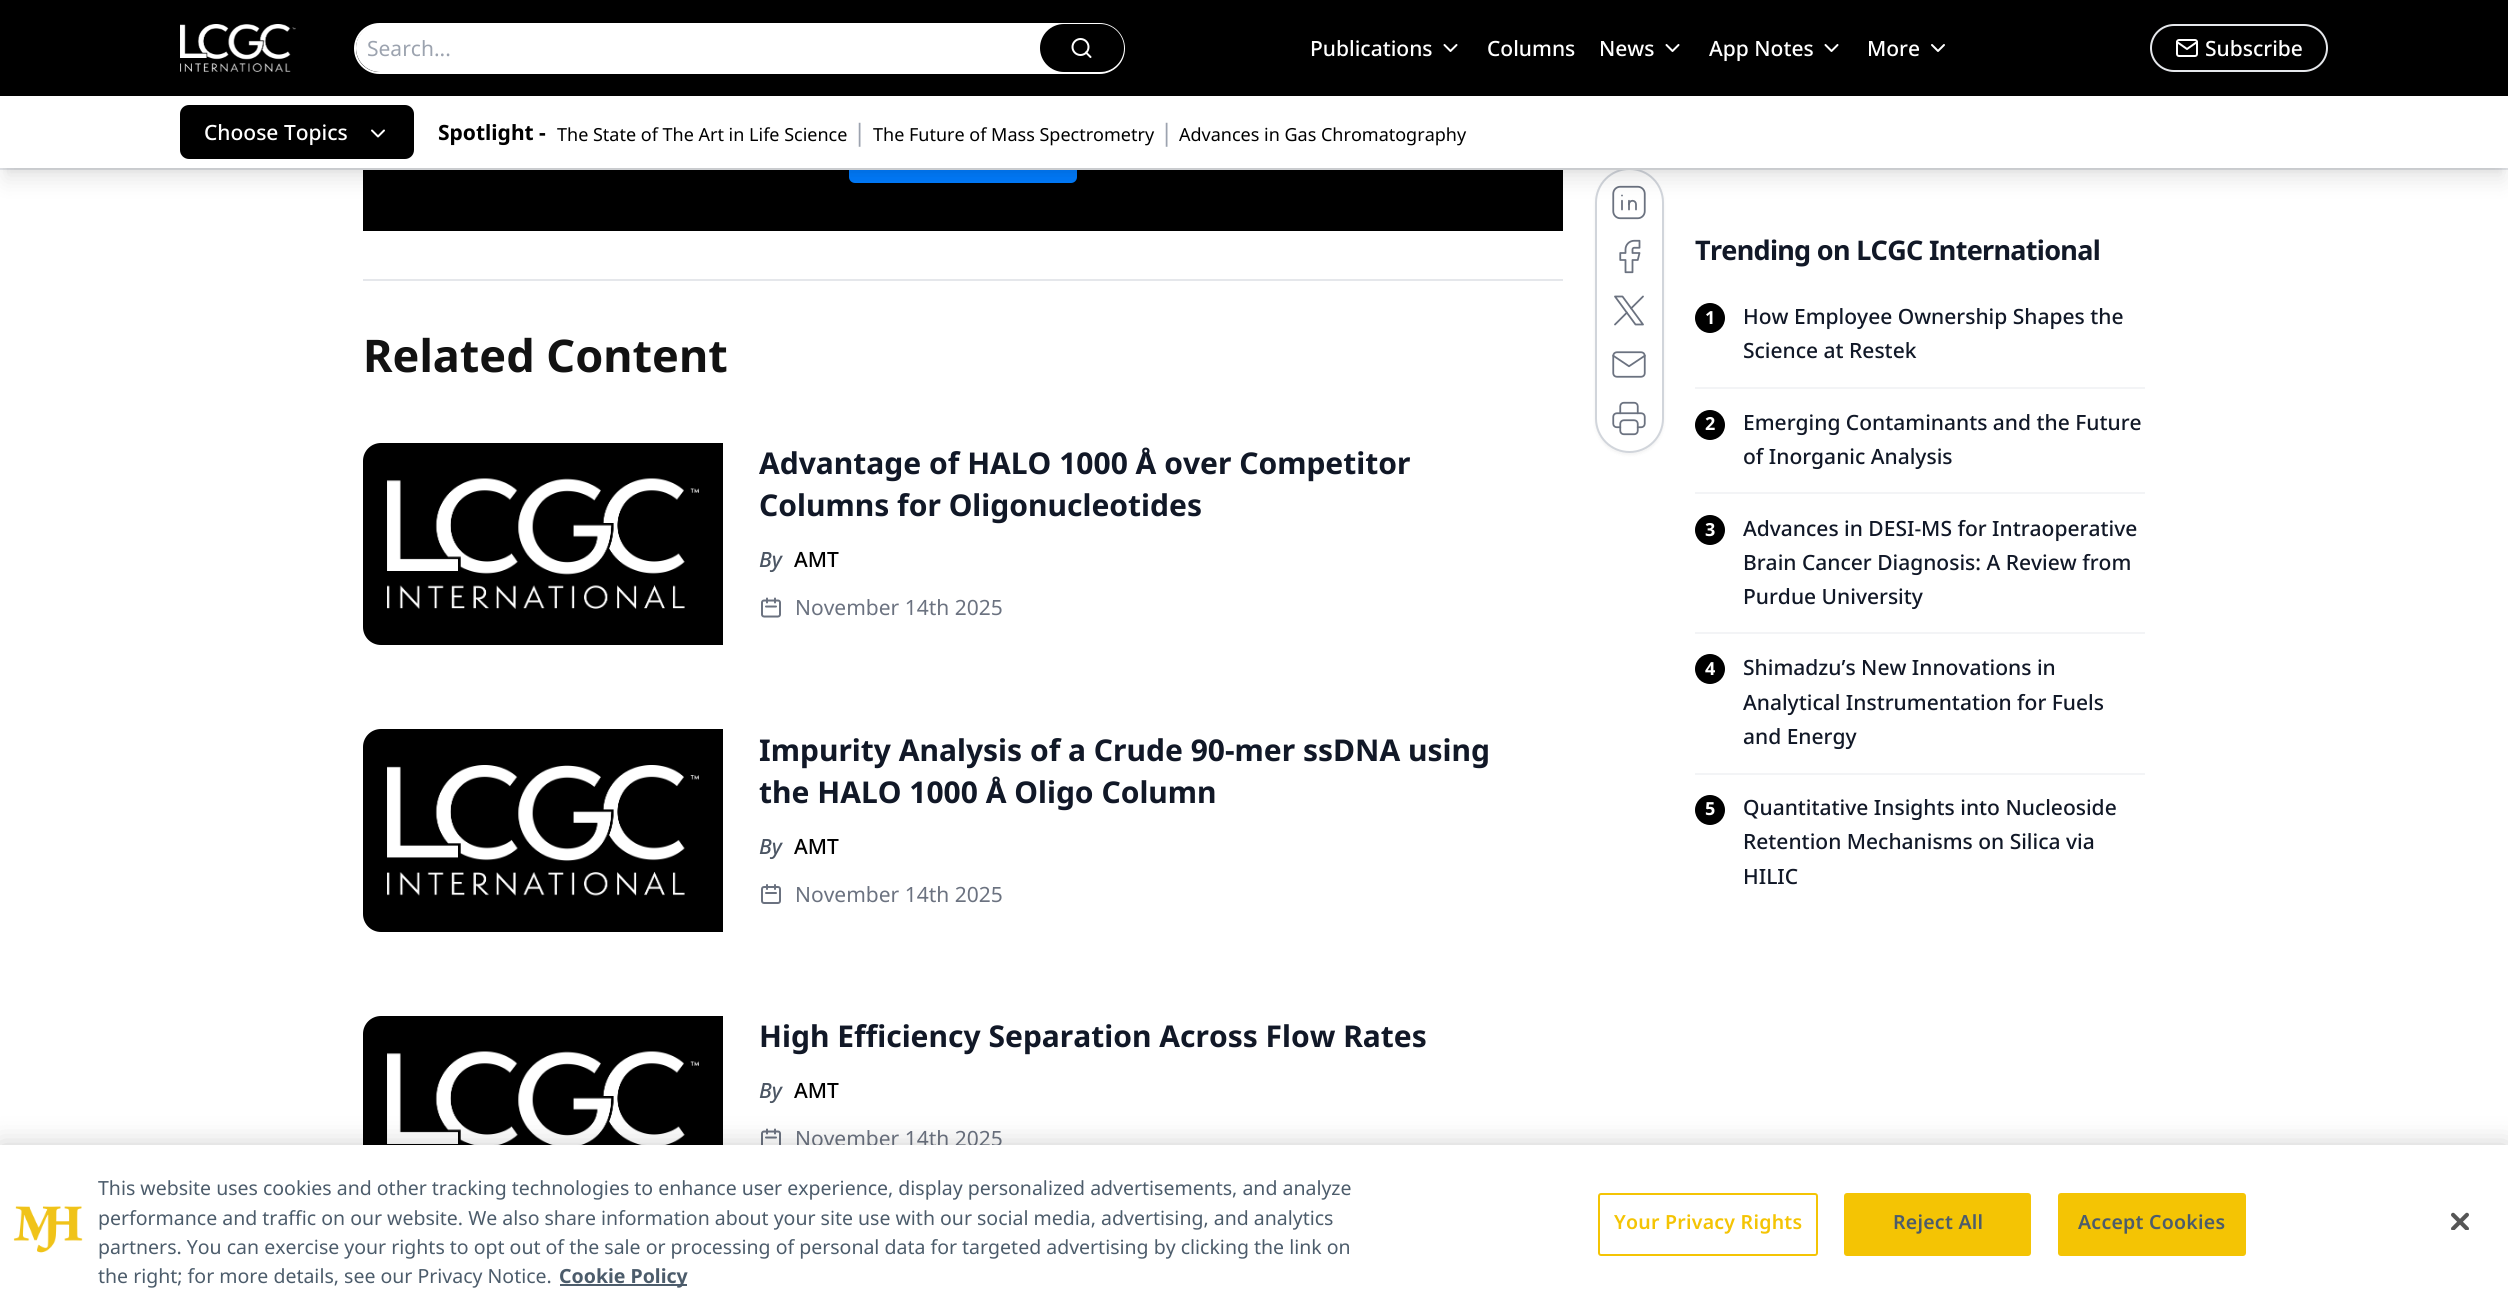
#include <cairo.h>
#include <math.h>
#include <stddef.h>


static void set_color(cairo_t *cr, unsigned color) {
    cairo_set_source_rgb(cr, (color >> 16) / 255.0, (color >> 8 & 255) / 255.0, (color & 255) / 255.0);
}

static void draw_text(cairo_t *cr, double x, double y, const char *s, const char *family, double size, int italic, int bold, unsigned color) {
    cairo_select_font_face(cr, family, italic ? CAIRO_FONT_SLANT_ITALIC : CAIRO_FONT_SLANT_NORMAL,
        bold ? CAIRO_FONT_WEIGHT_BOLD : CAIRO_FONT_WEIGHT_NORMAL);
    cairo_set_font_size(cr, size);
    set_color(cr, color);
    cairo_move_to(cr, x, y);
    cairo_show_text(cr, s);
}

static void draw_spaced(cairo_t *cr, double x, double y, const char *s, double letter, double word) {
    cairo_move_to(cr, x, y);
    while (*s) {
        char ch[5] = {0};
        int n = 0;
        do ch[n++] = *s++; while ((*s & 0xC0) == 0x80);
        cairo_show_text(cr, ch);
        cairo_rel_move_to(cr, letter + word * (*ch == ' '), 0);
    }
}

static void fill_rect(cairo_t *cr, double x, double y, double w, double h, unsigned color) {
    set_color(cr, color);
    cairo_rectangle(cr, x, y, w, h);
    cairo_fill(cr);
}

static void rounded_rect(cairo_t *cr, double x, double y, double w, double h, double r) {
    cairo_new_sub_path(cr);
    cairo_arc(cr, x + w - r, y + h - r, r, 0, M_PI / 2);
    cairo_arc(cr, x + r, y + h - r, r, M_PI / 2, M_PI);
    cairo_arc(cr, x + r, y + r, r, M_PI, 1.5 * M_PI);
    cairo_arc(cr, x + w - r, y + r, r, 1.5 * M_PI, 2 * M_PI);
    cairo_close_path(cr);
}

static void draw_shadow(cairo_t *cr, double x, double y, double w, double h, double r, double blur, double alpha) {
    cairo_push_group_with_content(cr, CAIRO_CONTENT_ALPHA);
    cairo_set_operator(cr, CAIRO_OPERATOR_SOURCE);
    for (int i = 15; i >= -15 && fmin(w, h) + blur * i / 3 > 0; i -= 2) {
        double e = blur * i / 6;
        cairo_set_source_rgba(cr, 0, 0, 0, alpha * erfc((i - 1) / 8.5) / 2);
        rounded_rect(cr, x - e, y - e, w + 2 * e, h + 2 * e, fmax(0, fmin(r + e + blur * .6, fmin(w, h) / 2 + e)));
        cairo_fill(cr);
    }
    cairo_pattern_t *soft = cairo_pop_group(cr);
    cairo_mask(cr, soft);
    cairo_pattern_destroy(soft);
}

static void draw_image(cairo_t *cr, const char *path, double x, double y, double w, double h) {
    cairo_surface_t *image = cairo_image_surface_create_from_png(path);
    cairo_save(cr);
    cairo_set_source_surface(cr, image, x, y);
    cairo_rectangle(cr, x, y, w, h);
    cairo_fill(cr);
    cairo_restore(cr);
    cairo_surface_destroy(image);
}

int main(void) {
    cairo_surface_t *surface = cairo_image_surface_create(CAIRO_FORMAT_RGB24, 2508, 1306);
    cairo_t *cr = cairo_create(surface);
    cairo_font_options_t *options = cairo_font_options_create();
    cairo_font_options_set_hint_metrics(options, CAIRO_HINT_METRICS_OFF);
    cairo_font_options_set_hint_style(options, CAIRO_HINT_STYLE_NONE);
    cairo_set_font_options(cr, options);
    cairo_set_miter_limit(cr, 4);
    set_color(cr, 0xFFFFFF);
    cairo_paint(cr);
    fill_rect(cr, 0, 0, 2508, 96, 0x000000);
    fill_rect(cr, 363, 170, 1200, 61, 0x000000);
    set_color(cr, 0x007BFD);
    rounded_rect(cr, 849, 99, 228, 84, 6);
    cairo_fill(cr);
    set_color(cr, 0x000000);
    draw_shadow(cr, 1595, 170, 69, 285, 34.5, 1.5, 0.05);
    set_color(cr, 0xFFFFFF);
    rounded_rect(cr, 1596, 169, 67, 283, 33.5);
    cairo_fill_preserve(cr);
    set_color(cr, 0xD1D5DB);
    cairo_stroke(cr);
    fill_rect(cr, 0, 168, 2508, 2, 0xE5E7EB);
    draw_image(cr, "assets/img1.png", 180, 24, 116, 48);
    rounded_rect(cr, 355, 24, 769, 49, 24.5);
    set_color(cr, 0xFFFFFF);
    cairo_stroke(cr);
    rounded_rect(cr, 356, 24, 768, 48, 24);
    cairo_fill(cr);
    draw_text(cr, 367, 56, "Search...", "Noto Sans", 21, 0, 0, 0x9CA3AF);
    set_color(cr, 0x000000);
    rounded_rect(cr, 1040, 24, 84, 48, 24);
    cairo_fill(cr);
    cairo_arc(cr, 1080.5, 47, 8, 0, 2 * M_PI);
    set_color(cr, 0xFFFFFF);
    cairo_stroke(cr);
    cairo_new_path(cr);
    cairo_move_to(cr, 1090.5, 57);
    cairo_line_to(cr, 1086, 52.5);
    cairo_set_line_cap(cr, CAIRO_LINE_CAP_ROUND);
    cairo_set_line_join(cr, CAIRO_LINE_JOIN_ROUND);
    cairo_stroke(cr);
    draw_text(cr, 1310, 56, "Publications", "Noto Sans Medium", 21, 0, 0, 0xFFFFFF);
    cairo_new_path(cr);
    cairo_move_to(cr, 1444.5, 45);
    cairo_line_to(cr, 1450.5, 51);
    cairo_line_to(cr, 1456.5, 45);
    cairo_stroke(cr);
    draw_text(cr, 1487, 56, "Columns", "Noto Sans Medium", 21, 0, 0, 0xFFFFFF);
    draw_text(cr, 1599, 56, "News", "Noto Sans Medium", 21, 0, 0, 0xFFFFFF);
    cairo_new_path(cr);
    cairo_move_to(cr, 1666.5, 45);
    cairo_line_to(cr, 1672.5, 51);
    cairo_line_to(cr, 1678.5, 45);
    cairo_stroke(cr);
    draw_text(cr, 1709, 56, "App Notes", "Noto Sans Medium", 21, 0, 0, 0xFFFFFF);
    cairo_new_path(cr);
    cairo_move_to(cr, 1825.5, 45);
    cairo_line_to(cr, 1831.5, 51);
    cairo_line_to(cr, 1837.5, 45);
    cairo_stroke(cr);
    draw_text(cr, 1867, 56, "More", "Noto Sans Medium", 21, 0, 0, 0xFFFFFF);
    cairo_new_path(cr);
    cairo_move_to(cr, 1932, 45);
    cairo_line_to(cr, 1938, 51);
    cairo_line_to(cr, 1944, 45);
    cairo_stroke(cr);
    rounded_rect(cr, 2151, 25, 176, 46, 23);
    set_color(cr, 0xE5E7EB);
    cairo_set_line_cap(cr, CAIRO_LINE_CAP_BUTT);
    cairo_set_line_join(cr, CAIRO_LINE_JOIN_MITER);
    cairo_stroke(cr);
    draw_image(cr, "assets/img2.png", 2176, 39, 22, 18);
    draw_text(cr, 2205, 56, "Subscribe", "Noto Sans Medium", 21, 0, 0, 0xFFFFFF);
    set_color(cr, 0x000000);
    draw_shadow(cr, 6, 108, 2496, 60, 0, 4.5, 0.1);
    draw_image(cr, "assets/img9.png", 1612, 185, 34, 35);
    draw_shadow(cr, 5, 116, 2499, 63, 0, 11, 0.1);
    fill_rect(cr, 0, 99, 2508, 69, 0xFFFFFF);
    set_color(cr, 0x000000);
    rounded_rect(cr, 180, 105, 234, 54, 9);
    cairo_fill(cr);
    draw_text(cr, 204, 140, "Choose Topics", "Noto Sans Medium", 21, 0, 0, 0xFFFFFF);
    cairo_new_path(cr);
    cairo_move_to(cr, 372, 130.5);
    cairo_line_to(cr, 378, 136.5);
    cairo_line_to(cr, 384, 130.5);
    cairo_set_line_cap(cr, CAIRO_LINE_CAP_ROUND);
    cairo_set_line_join(cr, CAIRO_LINE_JOIN_ROUND);
    cairo_stroke(cr);
    draw_text(cr, 438, 140, "Spotlight -", "Noto Sans", 21, 0, 1, 0x000000);
    draw_text(cr, 557, 141, "The State of The Art in Life Science", "Noto Sans", 18, 0, 0, 0x000000);
    draw_text(cr, 853, 141, "|", "Noto Sans", 24, 0, 0, 0x9CA3AF);
    draw_text(cr, 873, 141, "The Future of Mass Spectrometry", "Noto Sans", 18, 0, 0, 0x000000);
    draw_text(cr, 1160, 141, "|", "Noto Sans", 24, 0, 0, 0x9CA3AF);
    draw_text(cr, 1179, 141, "Advances in Gas Chromatography", "Noto Sans", 18, 0, 0, 0x000000);
    fill_rect(cr, 363, 279, 1200, 2, 0xE5E7EB);
    draw_text(cr, 363, 372, "Related Content", "Noto Sans", 45, 0, 1, 0x121212);
    set_color(cr, 0x000000);
    cairo_new_path(cr);
    cairo_move_to(cr, 381, 443);
    cairo_line_to(cr, 723, 443);
    cairo_line_to(cr, 723, 645);
    cairo_line_to(cr, 381, 645);
    cairo_curve_to(cr, 371, 645, 363, 637, 363, 627);
    cairo_line_to(cr, 363, 461);
    cairo_curve_to(cr, 363, 451, 371, 443, 381, 443);
    cairo_close_path(cr);
    cairo_fill(cr);
    draw_image(cr, "assets/img3.png", 387, 478, 312, 131);
    draw_text(cr, 759, 474, "Advantage of HALO 1000 Å over Competitor", "Noto Sans", 30, 0, 1, 0x111827);
    draw_text(cr, 759, 516, "Columns for Oligonucleotides", "Noto Sans", 30, 0, 1, 0x111827);
    draw_text(cr, 759, 567, "By", "Noto Sans Medium", 21, 1, 0, 0x4B5563);
    draw_text(cr, 794, 567, "AMT", "Noto Sans Medium", 21, 0, 0, 0x000000);
    draw_image(cr, "assets/img4.png", 761, 597, 20, 21);
    draw_text(cr, 795, 615, "November 14th 2025", "Noto Sans", 21, 0, 0, 0x6B7280);
    set_color(cr, 0x000000);
    cairo_new_path(cr);
    cairo_move_to(cr, 381, 729);
    cairo_line_to(cr, 723, 729);
    cairo_line_to(cr, 723, 932);
    cairo_line_to(cr, 381, 932);
    cairo_curve_to(cr, 371, 932, 363, 924, 363, 914);
    cairo_line_to(cr, 363, 747);
    cairo_curve_to(cr, 363, 737, 371, 729, 381, 729);
    cairo_close_path(cr);
    cairo_fill(cr);
    draw_image(cr, "assets/img5.png", 387, 765, 312, 131);
    draw_text(cr, 759, 761, "Impurity Analysis of a Crude 90-mer ssDNA using", "Noto Sans", 30, 0, 1, 0x111827);
    draw_text(cr, 759, 803, "the HALO 1000 Å Oligo Column", "Noto Sans", 30, 0, 1, 0x111827);
    draw_text(cr, 759, 854, "By", "Noto Sans Medium", 21, 1, 0, 0x4B5563);
    draw_text(cr, 794, 854, "AMT", "Noto Sans Medium", 21, 0, 0, 0x000000);
    draw_image(cr, "assets/img6.png", 761, 884, 20, 20);
    draw_text(cr, 795, 902, "November 14th 2025", "Noto Sans", 21, 0, 0, 0x6B7280);
    set_color(cr, 0x000000);
    cairo_new_path(cr);
    cairo_move_to(cr, 381, 1016);
    cairo_line_to(cr, 723, 1016);
    cairo_line_to(cr, 723, 1218);
    cairo_line_to(cr, 381, 1218);
    cairo_curve_to(cr, 371, 1218, 363, 1210, 363, 1200);
    cairo_line_to(cr, 363, 1034);
    cairo_curve_to(cr, 363, 1024, 371, 1016, 381, 1016);
    cairo_close_path(cr);
    cairo_fill(cr);
    draw_image(cr, "assets/img7.png", 387, 1051, 312, 94);
    draw_text(cr, 759, 1047, "High Efficiency Separation Across Flow Rates", "Noto Sans", 30, 0, 1, 0x111827);
    draw_text(cr, 759, 1098, "By", "Noto Sans Medium", 21, 1, 0, 0x4B5563);
    draw_text(cr, 794, 1098, "AMT", "Noto Sans Medium", 21, 0, 0, 0x000000);
    draw_image(cr, "assets/img8.png", 761, 1128, 20, 17);
    draw_text(cr, 795, 1146, "November 14th 2025", "Noto Sans", 21, 0, 0, 0x6B7280);
    draw_image(cr, "assets/img10.png", 1619, 239, 22, 35);
    cairo_new_path(cr);
    cairo_move_to(cr, 1615, 296.5);
    cairo_line_to(cr, 1635.5, 324.5);
    cairo_line_to(cr, 1643, 324.5);
    cairo_line_to(cr, 1622.5, 296.5);
    cairo_close_path(cr);
    cairo_move_to(cr, 1615, 324.5);
    cairo_line_to(cr, 1627, 312.5);
    cairo_move_to(cr, 1631, 308.5);
    cairo_line_to(cr, 1643, 296.5);
    cairo_set_line_width(cr, 1.8);
    cairo_stroke(cr);
    draw_image(cr, "assets/img11.png", 1612, 351, 34, 27);
    draw_image(cr, "assets/img12.png", 1612, 401, 34, 35);
    cairo_select_font_face(cr, "Noto Sans", CAIRO_FONT_SLANT_NORMAL, CAIRO_FONT_WEIGHT_BOLD);
    cairo_set_font_size(cr, 27);
    set_color(cr, 0x111827);
    draw_spaced(cr, 1695, 260, "Trending on LCGC International", -0.7, 0);
    set_color(cr, 0x000000);
    cairo_new_path(cr);
    cairo_arc(cr, 1710, 318, 15, 0, 2 * M_PI);
    cairo_fill(cr);
    draw_text(cr, 1705, 324, "1", "Noto Sans", 18, 0, 1, 0xFFFFFF);
    draw_text(cr, 1743, 324, "How Employee Ownership Shapes the", "Noto Sans Medium", 21, 0, 0, 0x111827);
    draw_text(cr, 1743, 358, "Science at Restek", "Noto Sans Medium", 21, 0, 0, 0x111827);
    fill_rect(cr, 1695, 387, 450, 2, 0xF3F4F6);
    set_color(cr, 0x000000);
    cairo_new_path(cr);
    cairo_arc(cr, 1710, 425, 15, 0, 2 * M_PI);
    cairo_fill(cr);
    draw_text(cr, 1705, 430, "2", "Noto Sans", 18, 0, 1, 0xFFFFFF);
    draw_text(cr, 1743, 430, "Emerging Contaminants and the Future", "Noto Sans Medium", 21, 0, 0, 0x111827);
    draw_text(cr, 1743, 464, "of Inorganic Analysis", "Noto Sans Medium", 21, 0, 0, 0x111827);
    fill_rect(cr, 1695, 492, 450, 2, 0xF3F4F6);
    set_color(cr, 0x000000);
    cairo_new_path(cr);
    cairo_arc(cr, 1710, 530, 15, 0, 2 * M_PI);
    cairo_fill(cr);
    draw_text(cr, 1705, 536, "3", "Noto Sans", 18, 0, 1, 0xFFFFFF);
    draw_text(cr, 1743, 536, "Advances in DESI-MS for Intraoperative", "Noto Sans Medium", 21, 0, 0, 0x111827);
    draw_text(cr, 1743, 570, "Brain Cancer Diagnosis: A Review from", "Noto Sans Medium", 21, 0, 0, 0x111827);
    draw_text(cr, 1743, 604, "Purdue University", "Noto Sans Medium", 21, 0, 0, 0x111827);
    fill_rect(cr, 1695, 632, 450, 2, 0xF3F4F6);
    set_color(cr, 0x000000);
    cairo_new_path(cr);
    cairo_arc(cr, 1710, 669, 15, 0, 2 * M_PI);
    cairo_fill(cr);
    draw_text(cr, 1705, 675, "4", "Noto Sans", 18, 0, 1, 0xFFFFFF);
    draw_text(cr, 1743, 675, "Shimadzu’s New Innovations in", "Noto Sans Medium", 21, 0, 0, 0x111827);
    draw_text(cr, 1743, 710, "Analytical Instrumentation for Fuels", "Noto Sans Medium", 21, 0, 0, 0x111827);
    draw_text(cr, 1743, 744, "and Energy", "Noto Sans Medium", 21, 0, 0, 0x111827);
    fill_rect(cr, 1695, 773, 450, 2, 0xF3F4F6);
    set_color(cr, 0x000000);
    cairo_new_path(cr);
    cairo_arc(cr, 1710, 810, 15, 0, 2 * M_PI);
    cairo_fill(cr);
    draw_text(cr, 1705, 815, "5", "Noto Sans", 18, 0, 1, 0xFFFFFF);
    draw_text(cr, 1743, 815, "Quantitative Insights into Nucleoside", "Noto Sans Medium", 21, 0, 0, 0x111827);
    draw_text(cr, 1743, 849, "Retention Mechanisms on Silica via", "Noto Sans Medium", 21, 0, 0, 0x111827);
    draw_text(cr, 1743, 884, "HILIC", "Noto Sans Medium", 21, 0, 0, 0x111827);
    set_color(cr, 0x000000);
    draw_shadow(cr, 0, 1145, 2508, 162, 0, 13.5, 0.2);
    fill_rect(cr, 0, 1145, 2508, 161, 0xFFFFFF);
    draw_image(cr, "assets/img13.png", 13, 1206, 70, 47);
    draw_text(cr, 98, 1195, "This website uses cookies and other tracking technologies to enhance user experience, display personalized advertisements, and analyze", "Noto Sans", 19.5, 0, 0, 0x4C5C6B);
    draw_text(cr, 98, 1225, "performance and traffic on our website. We also share information about your site use with our social media, advertising, and analytics", "Noto Sans", 19.5, 0, 0, 0x4C5C6B);
    draw_text(cr, 98, 1254, "partners. You can exercise your rights to opt out of the sale or processing of personal data for targeted advertising by clicking the link on", "Noto Sans", 19.5, 0, 0, 0x4C5C6B);
    draw_text(cr, 98, 1283, "the right; for more details, see our Privacy Notice.", "Noto Sans", 19.5, 0, 0, 0x4C5C6B);
    fill_rect(cr, 560, 1284, 127, 2, 0x4C5C6B);
    draw_text(cr, 559, 1283, "Cookie Policy", "Noto Sans", 19.5, 0, 1, 0x4C5C6B);
    rounded_rect(cr, 1599, 1194, 218, 61, 2);
    set_color(cr, 0xF4C404);
    cairo_set_line_width(cr, 2);
    cairo_set_line_cap(cr, CAIRO_LINE_CAP_BUTT);
    cairo_set_line_join(cr, CAIRO_LINE_JOIN_MITER);
    cairo_stroke(cr);
    cairo_select_font_face(cr, "Noto Sans SemiBold", CAIRO_FONT_SLANT_NORMAL, CAIRO_FONT_WEIGHT_NORMAL);
    draw_spaced(cr, 1614, 1229, "Your Privacy Rights", 0.25, 0);
    rounded_rect(cr, 1845, 1194, 185, 61, 2);
    cairo_fill_preserve(cr);
    cairo_stroke(cr);
    set_color(cr, 0x4C5C6B);
    draw_spaced(cr, 1893, 1229, "Reject All", 0.25, 0);
    set_color(cr, 0xF4C404);
    rounded_rect(cr, 2059, 1194, 186, 61, 2);
    cairo_fill_preserve(cr);
    cairo_stroke(cr);
    set_color(cr, 0x4C5C6B);
    draw_spaced(cr, 2078, 1229, "Accept Cookies", 0.25, 0);
    draw_image(cr, "assets/img14.png", 2451, 1212, 18, 18);
    cairo_surface_write_to_png(surface, "output.png");
    cairo_font_options_destroy(options);
    cairo_destroy(cr);
    cairo_surface_destroy(surface);
    return 0;
}
